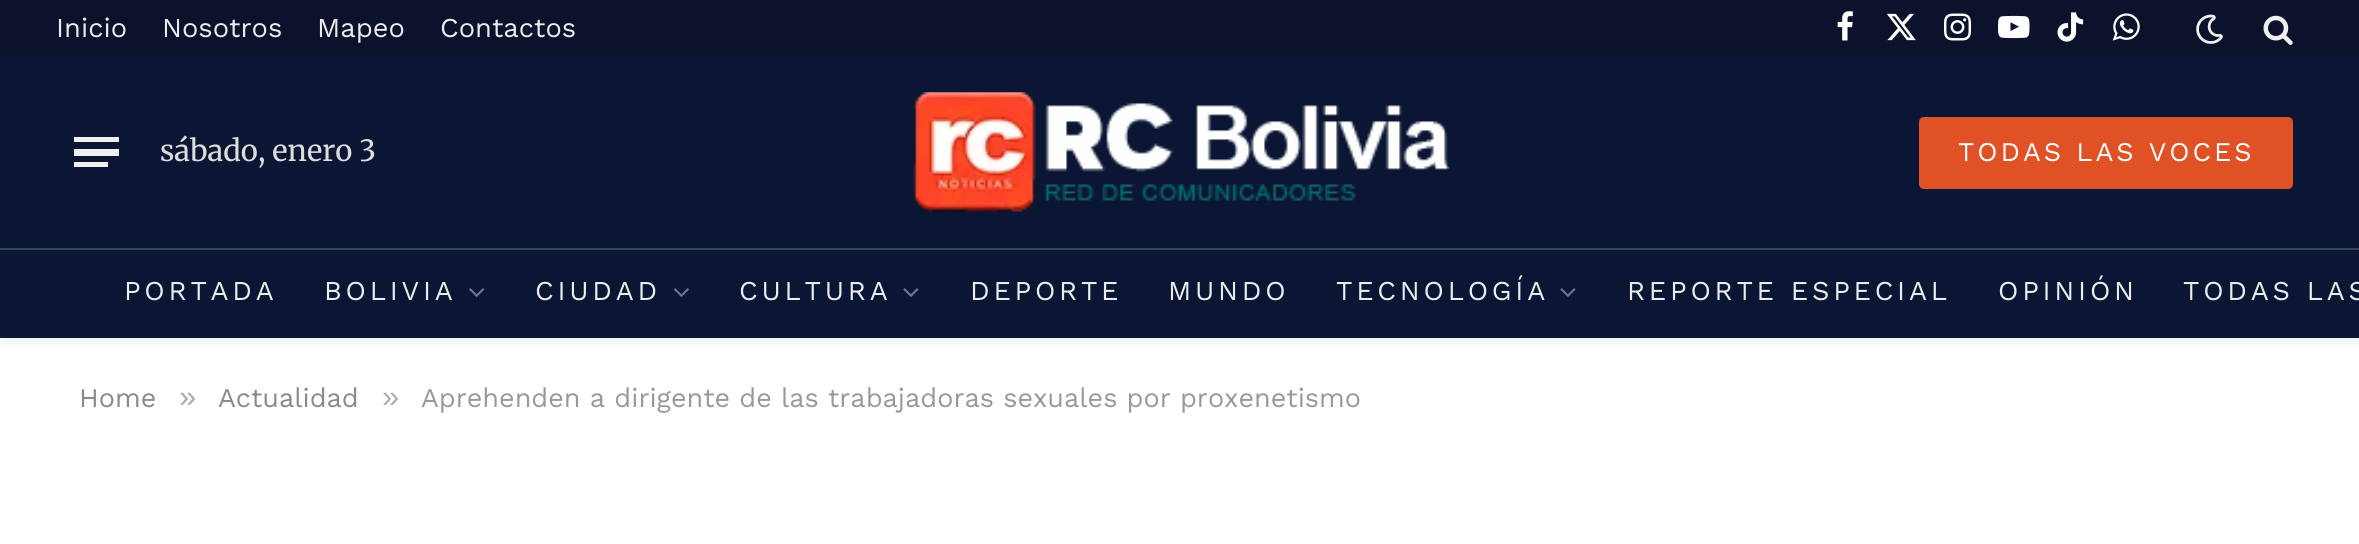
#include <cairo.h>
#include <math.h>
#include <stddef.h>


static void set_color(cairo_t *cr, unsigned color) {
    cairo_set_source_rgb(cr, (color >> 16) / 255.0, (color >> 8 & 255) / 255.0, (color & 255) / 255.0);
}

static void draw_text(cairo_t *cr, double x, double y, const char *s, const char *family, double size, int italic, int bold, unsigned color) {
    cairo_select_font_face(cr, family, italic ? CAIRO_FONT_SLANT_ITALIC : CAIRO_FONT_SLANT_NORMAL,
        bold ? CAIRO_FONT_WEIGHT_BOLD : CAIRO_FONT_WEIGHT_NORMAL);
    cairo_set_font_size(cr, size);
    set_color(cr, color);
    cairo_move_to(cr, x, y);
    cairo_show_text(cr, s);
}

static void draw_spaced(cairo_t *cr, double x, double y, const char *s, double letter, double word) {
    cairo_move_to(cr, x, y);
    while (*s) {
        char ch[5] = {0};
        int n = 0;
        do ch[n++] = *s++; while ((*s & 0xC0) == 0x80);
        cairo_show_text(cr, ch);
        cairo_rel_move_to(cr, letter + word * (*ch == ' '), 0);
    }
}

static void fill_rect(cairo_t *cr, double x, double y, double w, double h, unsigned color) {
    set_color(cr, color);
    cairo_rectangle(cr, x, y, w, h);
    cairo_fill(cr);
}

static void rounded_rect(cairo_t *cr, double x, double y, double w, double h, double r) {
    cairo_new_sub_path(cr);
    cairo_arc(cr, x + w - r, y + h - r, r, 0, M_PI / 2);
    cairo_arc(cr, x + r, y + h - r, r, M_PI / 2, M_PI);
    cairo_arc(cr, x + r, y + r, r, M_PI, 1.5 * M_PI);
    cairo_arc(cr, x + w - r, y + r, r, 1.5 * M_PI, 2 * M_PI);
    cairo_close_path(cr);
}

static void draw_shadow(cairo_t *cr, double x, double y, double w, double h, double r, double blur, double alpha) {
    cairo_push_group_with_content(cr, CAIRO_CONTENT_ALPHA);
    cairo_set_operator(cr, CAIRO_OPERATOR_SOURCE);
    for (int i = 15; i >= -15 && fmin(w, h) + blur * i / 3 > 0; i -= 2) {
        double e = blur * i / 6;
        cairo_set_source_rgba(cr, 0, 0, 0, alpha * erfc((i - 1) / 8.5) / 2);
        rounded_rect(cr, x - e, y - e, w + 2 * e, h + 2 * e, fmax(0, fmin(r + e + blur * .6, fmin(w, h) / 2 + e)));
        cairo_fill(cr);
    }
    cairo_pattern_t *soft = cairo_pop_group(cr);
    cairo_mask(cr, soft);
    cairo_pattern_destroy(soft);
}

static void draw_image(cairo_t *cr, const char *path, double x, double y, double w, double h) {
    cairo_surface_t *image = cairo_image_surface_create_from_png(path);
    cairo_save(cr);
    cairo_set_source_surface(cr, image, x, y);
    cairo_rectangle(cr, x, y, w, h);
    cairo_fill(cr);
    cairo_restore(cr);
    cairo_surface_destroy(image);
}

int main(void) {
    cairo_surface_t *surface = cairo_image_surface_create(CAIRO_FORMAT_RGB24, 2359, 544);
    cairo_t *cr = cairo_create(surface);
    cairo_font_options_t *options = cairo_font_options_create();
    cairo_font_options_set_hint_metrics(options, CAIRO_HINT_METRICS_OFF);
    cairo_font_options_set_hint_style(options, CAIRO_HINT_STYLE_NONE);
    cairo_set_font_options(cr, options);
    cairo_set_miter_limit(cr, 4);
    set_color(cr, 0xFFFFFF);
    cairo_paint(cr);
    set_color(cr, 0x000000);
    draw_shadow(cr, 0, 7, 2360, 337, 0, 4.5, 0.05);
    fill_rect(cr, 0, 0, 2359, 56, 0x0C122B);
    draw_text(cr, 56, 37, "Inicio", "Work Sans", 27.25, 0, 0, 0xECECEE);
    draw_text(cr, 162, 37, "Nosotros", "Work Sans", 27.25, 0, 0, 0xECECEE);
    draw_text(cr, 317, 37, "Mapeo", "Work Sans", 27.25, 0, 0, 0xECECEE);
    draw_text(cr, 440, 37, "Contactos", "Work Sans", 27.25, 0, 0, 0xECECEE);
    draw_image(cr, "assets/img1.png", 1837, 11, 16, 30);
    draw_image(cr, "assets/img2.png", 1887, 13, 29, 28);
    draw_image(cr, "assets/img3.png", 1944, 13, 27, 28);
    draw_image(cr, "assets/img4.png", 1998, 15, 32, 24);
    draw_image(cr, "assets/img5.png", 2057, 12, 27, 30);
    draw_image(cr, "assets/img6.png", 2112, 13, 28, 28);
    draw_image(cr, "assets/img7.png", 2196, 14, 27, 30);
    draw_image(cr, "assets/img8.png", 2263, 15, 30, 30);
    fill_rect(cr, 0, 56, 2359, 192, 0x0A1633);
    fill_rect(cr, 74, 162, 34, 5, 0xF0F0F0);
    fill_rect(cr, 74, 137, 45, 5, 0xF0F0F0);
    fill_rect(cr, 74, 149, 45, 7, 0xF0F0F0);
    draw_text(cr, 160, 161, "sábado, enero 3", "Merriweather Light", 29.25, 0, 0, 0xDDDDDD);
    draw_image(cr, "assets/img9.png", 913, 92, 537, 120);
    set_color(cr, 0xE05126);
    rounded_rect(cr, 1919, 117, 374, 72, 5);
    cairo_fill(cr);
    cairo_select_font_face(cr, "Work Sans", CAIRO_FONT_SLANT_NORMAL, CAIRO_FONT_WEIGHT_NORMAL);
    cairo_set_font_size(cr, 27);
    set_color(cr, 0xFFFFFF);
    draw_spaced(cr, 1958, 161, "TODAS LAS VOCES", 3, 0);
    fill_rect(cr, 0, 250, 2359, 88, 0x0A1633);
    fill_rect(cr, 0, 248, 2359, 2, 0x304951);
    cairo_set_font_size(cr, 27.25);
    set_color(cr, 0xECECEE);
    draw_spaced(cr, 124, 300, "PORTADA", 3.75, 0);
    draw_spaced(cr, 324, 300, "BOLIVIA", 3.75, 0);
    draw_image(cr, "assets/img10.png", 469, 288, 16, 9);
    draw_spaced(cr, 535, 300, "CIUDAD", 3.75, 0);
    draw_image(cr, "assets/img11.png", 674, 288, 15, 9);
    draw_spaced(cr, 739, 300, "CULTURA", 3.75, 0);
    draw_image(cr, "assets/img12.png", 903, 288, 16, 9);
    draw_spaced(cr, 970, 300, "DEPORTE", 3.75, 0);
    draw_spaced(cr, 1168, 300, "MUNDO", 3.75, 0);
    draw_spaced(cr, 1336, 300, "TECNOLOGÍA", 3.75, 0);
    draw_image(cr, "assets/img12.png", 1560, 288, 16, 9);
    draw_spaced(cr, 1627, 300, "REPORTE ESPECIAL", 3.75, 0);
    draw_spaced(cr, 1998, 300, "OPINIÓN", 3.75, 0);
    draw_spaced(cr, 2183, 300, "TODAS LAS", 3.75, 0);
    draw_text(cr, 79, 407, "Home", "Work Sans", 27, 0, 0, 0x8A8A8A);
    draw_text(cr, 179, 407, "»", "Liberation Sans", 31, 0, 0, 0xADADAD);
    draw_text(cr, 218, 407, "Actualidad", "Work Sans", 27, 0, 0, 0x8A8A8A);
    draw_text(cr, 382, 407, "»", "Liberation Sans", 31, 0, 0, 0xADADAD);
    draw_text(cr, 421, 407, "Aprehenden a dirigente de las trabajadoras sexuales por proxenetismo", "Work Sans", 27, 0, 0, 0x999999);
    cairo_surface_write_to_png(surface, "output.png");
    cairo_font_options_destroy(options);
    cairo_destroy(cr);
    cairo_surface_destroy(surface);
    return 0;
}
